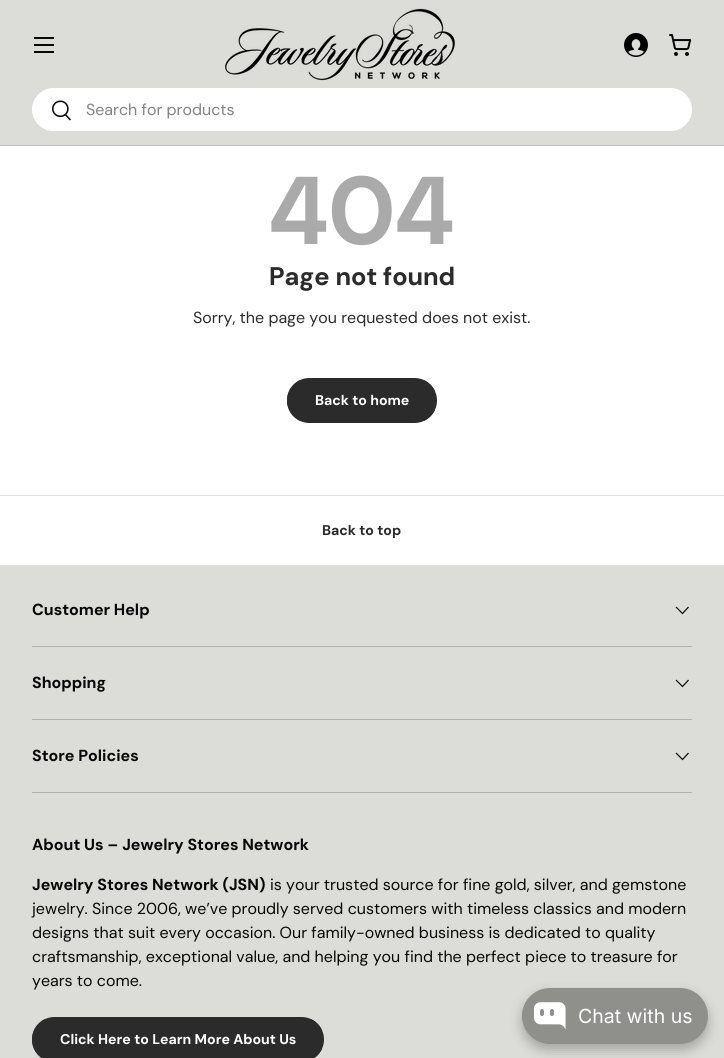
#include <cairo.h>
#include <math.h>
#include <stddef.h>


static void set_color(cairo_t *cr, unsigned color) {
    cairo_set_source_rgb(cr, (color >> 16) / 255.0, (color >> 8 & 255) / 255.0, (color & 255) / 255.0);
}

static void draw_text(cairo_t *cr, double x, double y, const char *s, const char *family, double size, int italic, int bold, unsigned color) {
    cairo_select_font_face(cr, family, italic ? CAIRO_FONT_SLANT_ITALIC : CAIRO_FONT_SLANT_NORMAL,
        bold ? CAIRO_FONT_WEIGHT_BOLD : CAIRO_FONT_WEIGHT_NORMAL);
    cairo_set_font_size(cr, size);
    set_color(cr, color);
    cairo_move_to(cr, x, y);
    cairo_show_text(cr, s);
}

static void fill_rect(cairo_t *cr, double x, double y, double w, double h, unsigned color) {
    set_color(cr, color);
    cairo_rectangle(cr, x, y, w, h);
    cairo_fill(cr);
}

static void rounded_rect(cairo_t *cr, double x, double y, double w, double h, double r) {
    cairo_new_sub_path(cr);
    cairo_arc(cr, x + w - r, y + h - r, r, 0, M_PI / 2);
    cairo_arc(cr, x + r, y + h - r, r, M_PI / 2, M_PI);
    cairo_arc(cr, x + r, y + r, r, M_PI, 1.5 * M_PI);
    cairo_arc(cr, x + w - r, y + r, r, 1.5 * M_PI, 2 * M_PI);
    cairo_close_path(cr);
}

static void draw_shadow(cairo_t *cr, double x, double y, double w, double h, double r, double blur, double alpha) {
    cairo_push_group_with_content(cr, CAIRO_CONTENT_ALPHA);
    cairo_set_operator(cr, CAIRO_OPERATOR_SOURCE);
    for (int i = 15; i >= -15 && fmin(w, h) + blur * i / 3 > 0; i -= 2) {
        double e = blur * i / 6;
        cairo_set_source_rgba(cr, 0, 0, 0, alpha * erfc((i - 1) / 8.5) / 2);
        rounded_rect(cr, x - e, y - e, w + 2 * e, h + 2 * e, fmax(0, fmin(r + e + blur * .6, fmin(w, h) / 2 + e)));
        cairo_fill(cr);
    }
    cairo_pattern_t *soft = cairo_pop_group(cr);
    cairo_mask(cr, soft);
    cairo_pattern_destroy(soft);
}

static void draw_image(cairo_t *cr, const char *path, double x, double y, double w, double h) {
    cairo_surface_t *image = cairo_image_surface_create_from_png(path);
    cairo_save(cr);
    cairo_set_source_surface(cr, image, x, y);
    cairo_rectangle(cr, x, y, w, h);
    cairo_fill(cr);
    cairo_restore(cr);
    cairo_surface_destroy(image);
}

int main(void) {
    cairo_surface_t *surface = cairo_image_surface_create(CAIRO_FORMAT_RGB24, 724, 1058);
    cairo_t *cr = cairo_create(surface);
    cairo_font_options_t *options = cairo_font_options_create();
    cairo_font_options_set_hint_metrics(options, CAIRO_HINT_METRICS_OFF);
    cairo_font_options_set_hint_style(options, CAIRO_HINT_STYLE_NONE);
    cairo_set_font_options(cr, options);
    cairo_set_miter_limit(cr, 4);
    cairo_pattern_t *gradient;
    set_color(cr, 0xFFFFFF);
    cairo_paint(cr);
    fill_rect(cr, 0, 0, 724, 145, 0xDCDCD8);
    fill_rect(cr, 0, 145, 724, 1, 0xBCBCB9);
    fill_rect(cr, 34, 37, 20, 2, 0x070707);
    fill_rect(cr, 34, 51, 20, 2, 0x070707);
    fill_rect(cr, 34, 44, 20, 2, 0x070707);
    draw_image(cr, "assets/img1.png", 225, 8, 230, 73);
    draw_image(cr, "assets/img2.png", 624, 33, 24, 24);
    draw_image(cr, "assets/img3.png", 669, 34, 23, 22);
    set_color(cr, 0xFFFFFF);
    rounded_rect(cr, 32, 88, 660, 43, 21.5);
    cairo_fill(cr);
    draw_image(cr, "assets/img4.png", 52, 100, 19, 21);
    draw_text(cr, 86, 115, "Search for products", "DM Sans", 16, 0, 0, 0x838383);
    draw_text(cr, 269, 244, "404", "DM Sans", 96, 0, 1, 0xAAAAAA);
    draw_text(cr, 269, 285, "Page not found", "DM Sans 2", 25.5, 0, 1, 0x2A2B2A);
    draw_text(cr, 193, 323, "Sorry, the page you requested does not exist.", "DM Sans", 16, 0, 0, 0x2A2B2A);
    cairo_save(cr);
    rounded_rect(cr, 287, 378, 150, 45, 22.5);
    cairo_clip(cr);
    gradient = cairo_pattern_create_linear(5, 348, 427, 453);
    cairo_pattern_add_color_stop_rgba(gradient, 0.6, 0.322, 0.325, 0.322, 1);
    cairo_pattern_add_color_stop_rgba(gradient, 0.6, 0.165, 0.169, 0.165, 1);
    cairo_pattern_add_color_stop_rgba(gradient, 1, 0.165, 0.169, 0.165, 1);
    cairo_set_source(cr, gradient);
    cairo_pattern_destroy(gradient);
    cairo_rectangle(cr, 287, 380, 148, 41);
    cairo_fill(cr);
    cairo_restore(cr);
    rounded_rect(cr, 288, 379, 148, 43, 21.5);
    cairo_stroke(cr);
    draw_text(cr, 315, 405, "Back to home", "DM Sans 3", 14.1, 0, 1, 0xFFFFFF);
    fill_rect(cr, 0, 495, 724, 1, 0xDFDFDF);
    fill_rect(cr, 0, 565, 724, 1, 0xDFDFDF);
    draw_text(cr, 322, 535, "Back to top", "DM Sans 3", 14.1, 0, 1, 0x2A2B2A);
    fill_rect(cr, 0, 566, 724, 492, 0xDCDCD8);
    fill_rect(cr, 32, 646, 660, 1, 0xB1B1AE);
    draw_text(cr, 32, 615, "Customer Help", "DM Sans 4", 16, 0, 1, 0x070707);
    cairo_new_path(cr);
    cairo_move_to(cr, 688.5, 607);
    cairo_line_to(cr, 682.5, 613.5);
    cairo_line_to(cr, 676, 607);
    cairo_set_line_width(cr, 1.2);
    cairo_stroke(cr);
    fill_rect(cr, 32, 719, 660, 1, 0xB1B1AE);
    draw_text(cr, 32, 688, "Shopping", "DM Sans 4", 16, 0, 1, 0x070707);
    cairo_new_path(cr);
    cairo_move_to(cr, 688.5, 680);
    cairo_line_to(cr, 682.5, 686.5);
    cairo_line_to(cr, 676, 680);
    cairo_stroke(cr);
    fill_rect(cr, 32, 792, 660, 1, 0xB1B1AE);
    draw_text(cr, 32, 761, "Store Policies", "DM Sans 4", 16, 0, 1, 0x070707);
    cairo_new_path(cr);
    cairo_move_to(cr, 688.5, 753);
    cairo_line_to(cr, 682.5, 759.5);
    cairo_line_to(cr, 676, 753);
    cairo_stroke(cr);
    draw_text(cr, 32, 850, "About Us – Jewelry Stores Network", "DM Sans 4", 16, 0, 1, 0x070707);
    draw_text(cr, 32, 890, "Jewelry Stores Network (JSN)", "DM Sans 4", 16, 0, 1, 0x070707);
    draw_text(cr, 270, 890, "is your trusted source for fine gold, silver, and gemstone", "DM Sans", 16, 0, 0, 0x070707);
    draw_text(cr, 32, 914, "jewelry. Since 2006, we’ve proudly served customers with timeless classics and modern", "DM Sans", 16, 0, 0, 0x070707);
    draw_text(cr, 32, 938, "designs that suit every occasion. Our family-owned business is dedicated to quality", "DM Sans", 16, 0, 0, 0x070707);
    draw_text(cr, 32, 962, "craftsmanship, exceptional value, and helping you find the perfect piece to treasure for", "DM Sans", 16, 0, 0, 0x070707);
    draw_text(cr, 32, 986, "years to come.", "DM Sans", 16, 0, 0, 0x070707);
    cairo_save(cr);
    rounded_rect(cr, 32, 1017, 292, 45, 22.5);
    cairo_clip(cr);
    gradient = cairo_pattern_create_linear(-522, 937, 302, 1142);
    cairo_pattern_add_color_stop_rgba(gradient, 0.6, 0.322, 0.325, 0.322, 1);
    cairo_pattern_add_color_stop_rgba(gradient, 0.6, 0.165, 0.169, 0.165, 1);
    cairo_pattern_add_color_stop_rgba(gradient, 1, 0.165, 0.169, 0.165, 1);
    cairo_set_source(cr, gradient);
    cairo_pattern_destroy(gradient);
    cairo_rectangle(cr, 32, 1019, 290, 39);
    cairo_fill(cr);
    cairo_restore(cr);
    rounded_rect(cr, 33, 1018, 290, 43, 21.5);
    set_color(cr, 0x2A2B2A);
    cairo_set_line_width(cr, 2);
    cairo_stroke(cr);
    draw_text(cr, 60, 1044, "Click Here to Learn More About Us", "DM Sans 3", 14.1, 0, 1, 0xFFFFFF);
    set_color(cr, 0x000000);
    draw_shadow(cr, 522, 994, 186, 56, 28, 6, 0.25);
    set_color(cr, 0x8F8F8C);
    rounded_rect(cr, 522, 988, 186, 56, 28);
    cairo_fill(cr);
    draw_image(cr, "assets/img5.png", 534, 1002, 32, 28);
    draw_text(cr, 578, 1023, "Chat with us", "Inter", 19.5, 0, 0, 0xFFFFFF);
    cairo_surface_write_to_png(surface, "output.png");
    cairo_font_options_destroy(options);
    cairo_destroy(cr);
    cairo_surface_destroy(surface);
    return 0;
}
